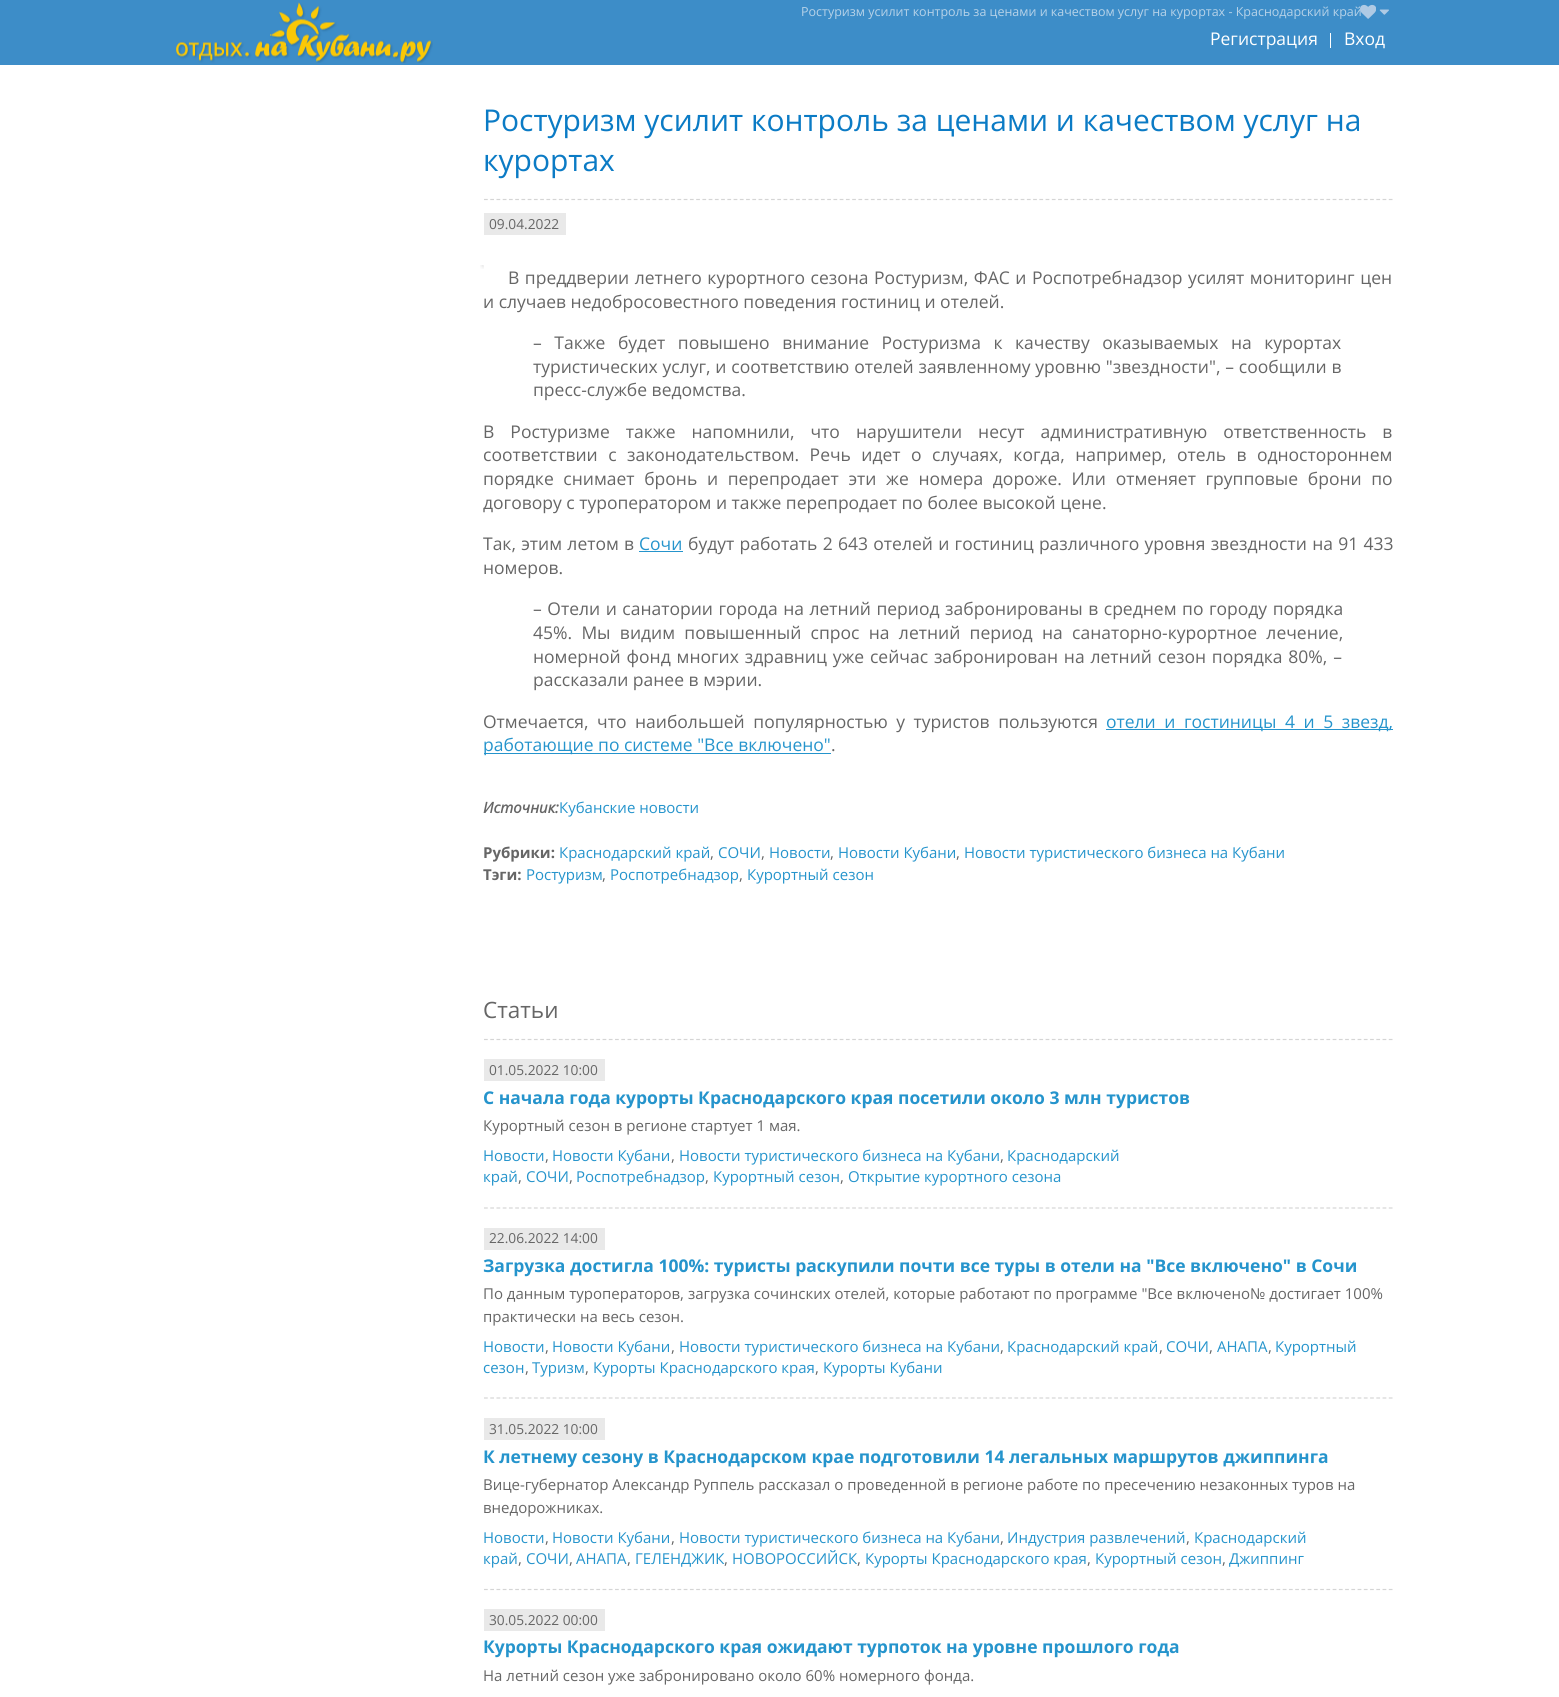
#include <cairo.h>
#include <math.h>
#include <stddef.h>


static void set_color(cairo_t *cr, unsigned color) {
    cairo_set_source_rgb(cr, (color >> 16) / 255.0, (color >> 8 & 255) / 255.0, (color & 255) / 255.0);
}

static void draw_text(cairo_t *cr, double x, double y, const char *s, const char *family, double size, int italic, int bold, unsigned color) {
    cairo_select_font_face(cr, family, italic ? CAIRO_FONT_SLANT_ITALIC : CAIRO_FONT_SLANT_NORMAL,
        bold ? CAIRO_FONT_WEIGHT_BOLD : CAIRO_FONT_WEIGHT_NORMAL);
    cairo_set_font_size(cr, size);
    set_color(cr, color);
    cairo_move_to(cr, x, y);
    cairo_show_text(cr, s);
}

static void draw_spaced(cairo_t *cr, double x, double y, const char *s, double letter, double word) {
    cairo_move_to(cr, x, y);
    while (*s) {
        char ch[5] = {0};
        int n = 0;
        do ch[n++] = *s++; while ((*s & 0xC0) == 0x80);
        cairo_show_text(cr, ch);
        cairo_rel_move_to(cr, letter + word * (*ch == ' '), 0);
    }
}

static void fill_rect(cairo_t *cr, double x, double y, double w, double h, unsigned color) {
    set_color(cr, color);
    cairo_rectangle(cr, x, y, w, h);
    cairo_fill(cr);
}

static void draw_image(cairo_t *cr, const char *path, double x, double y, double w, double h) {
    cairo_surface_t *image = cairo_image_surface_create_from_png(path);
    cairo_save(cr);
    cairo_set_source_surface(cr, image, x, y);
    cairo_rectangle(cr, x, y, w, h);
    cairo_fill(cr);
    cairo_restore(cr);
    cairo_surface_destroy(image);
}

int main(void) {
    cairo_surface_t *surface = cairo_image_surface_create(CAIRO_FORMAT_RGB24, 1559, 1697);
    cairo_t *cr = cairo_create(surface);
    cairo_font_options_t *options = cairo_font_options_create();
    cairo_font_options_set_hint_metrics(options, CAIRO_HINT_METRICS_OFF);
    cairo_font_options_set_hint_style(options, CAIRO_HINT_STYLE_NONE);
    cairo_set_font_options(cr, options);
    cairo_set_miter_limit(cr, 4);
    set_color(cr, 0xFFFFFF);
    cairo_paint(cr);
    fill_rect(cr, 0, 0, 1559, 65, 0x3D8DC8);
    draw_image(cr, "assets/img1.png", 176, 2, 257, 61);
    draw_text(cr, 801, 16, "Ростуризм усилит контроль за ценами и качеством услуг на курортах - Краснодарский край", "Open Sans", 12.5, 0, 0, 0xB6D2E8);
    draw_image(cr, "assets/img2.png", 1360, 4, 16, 15);
    draw_image(cr, "assets/img3.png", 1379, 9, 10, 6);
    draw_text(cr, 1210, 45, "Регистрация", "Open Sans", 17.5, 0, 0, 0xFFFFFF);
    fill_rect(cr, 1330, 33, 1, 15, 0xFFFFFF);
    draw_text(cr, 1344, 45, "Вход", "Open Sans", 17.5, 0, 0, 0xFFFFFF);
    cairo_new_path(cr);
    cairo_move_to(cr, 484, 199.5);
    cairo_line_to(cr, 1392.5, 199.5);
    set_color(cr, 0xD5D5D5);
    cairo_set_line_width(cr, 1.2);
    cairo_set_dash(cr, (double[]){3.75, 2.49}, 2, 0);
    cairo_stroke(cr);
    draw_text(cr, 483, 131, "Ростуризм усилит контроль за ценами и качеством услуг на", "Open Sans", 30, 0, 0, 0x0B7BC5);
    draw_text(cr, 483, 171, "курортах", "Open Sans", 30, 0, 0, 0x0B7BC5);
    fill_rect(cr, 484, 213, 82, 22, 0xE9E9E9);
    draw_text(cr, 489, 229, "09.04.2022", "Open Sans", 13.75, 0, 0, 0x666666);
    draw_image(cr, "assets/img4.png", 480, 265, 4, 4);
    fill_rect(cr, 483, 265, 1, 1, 0xF1F1F1);
    cairo_set_font_size(cr, 17.5);
    set_color(cr, 0x666666);
    draw_spaced(cr, 508, 284, "В преддверии летнего курортного сезона Ростуризм, ФАС и Роспотребнадзор усилят мониторинг цен", 0, 1);
    draw_text(cr, 483, 308, "и случаев недобросовестного поведения гостиниц и отелей.", "Open Sans", 17.5, 0, 0, 0x666666);
    draw_spaced(cr, 533, 349, "– Также будет повышено внимание Ростуризма к качеству оказываемых на курортах", 0, 8);
    draw_spaced(cr, 533, 373, "туристических услуг, и соответствию отелей заявленному уровню \"звездности\", – сообщили в", 0, 0.25);
    draw_text(cr, 533, 396, "пресс-службе ведомства.", "Open Sans", 17.5, 0, 0, 0x666666);
    draw_spaced(cr, 483, 438, "В Ростуризме также напомнили, что нарушители несут административную ответственность в", 0, 11.5);
    draw_spaced(cr, 483, 461, "соответствии с законодательством. Речь идет о случаях, когда, например, отель в одностороннем", 0, 5.9);
    draw_spaced(cr, 483, 485, "порядке снимает бронь и перепродает эти же номера дороже. Или отменяет групповые брони по", 0, 5.1);
    draw_text(cr, 483, 509, "договору с туроператором и также перепродает по более высокой цене.", "Open Sans", 17.5, 0, 0, 0x666666);
    draw_spaced(cr, 483, 550, "Так, этим летом в", 0, 0.75);
    draw_text(cr, 639, 550, "Сочи", "Open Sans", 17.5, 0, 0, 0x2594CC);
    fill_rect(cr, 639, 551, 44, 1, 0x2594CC);
    set_color(cr, 0x666666);
    draw_spaced(cr, 688, 550, "будут работать 2 643 отелей и гостиниц различного уровня звездности на 91 433", 0, 0.75);
    draw_text(cr, 483, 574, "номеров.", "Open Sans", 17.5, 0, 0, 0x666666);
    draw_spaced(cr, 533, 615, "– Отели и санатории города на летний период забронированы в среднем по городу порядка", 0, 1);
    draw_spaced(cr, 533, 639, "45%. Мы видим повышенный спрос на летний период на санаторно-курортное лечение,", 0, 4.75);
    draw_spaced(cr, 533, 663, "номерной фонд многих здравниц уже сейчас забронирован на летний сезон порядка 80%, –", 0, 1.3);
    draw_text(cr, 533, 686, "рассказали ранее в мэрии.", "Open Sans", 17.5, 0, 0, 0x666666);
    draw_spaced(cr, 483, 728, "Отмечается, что наибольшей популярностью у туристов пользуются", 0, 4);
    fill_rect(cr, 1106, 729, 287, 1, 0x2594CC);
    draw_spaced(cr, 1106, 728, "отели и гостиницы 4 и 5 звезд,", 0, 4);
    fill_rect(cr, 484, 753, 347, 1, 0x2594CC);
    draw_text(cr, 483, 751, "работающие по системе \"Все включено\"", "Open Sans", 17.5, 0, 0, 0x2594CC);
    draw_text(cr, 831, 751, ".", "Open Sans", 17.5, 0, 0, 0x666666);
    draw_text(cr, 483, 813, "Источник:", "Open Sans", 15, 1, 1, 0x666666);
    draw_text(cr, 559, 813, "Кубанские новости", "Open Sans", 15, 0, 0, 0x2594CC);
    draw_text(cr, 483, 858, "Рубрики:", "Open Sans", 15, 0, 1, 0x666666);
    draw_text(cr, 559, 858, "Краснодарский край", "Open Sans", 15, 0, 0, 0x2594CC);
    draw_text(cr, 710, 858, ",", "Open Sans", 15, 0, 0, 0x666666);
    draw_text(cr, 718, 858, "СОЧИ", "Open Sans", 15, 0, 0, 0x2594CC);
    draw_text(cr, 761, 858, ",", "Open Sans", 15, 0, 0, 0x666666);
    draw_text(cr, 769, 858, "Новости", "Open Sans", 15, 0, 0, 0x2594CC);
    draw_text(cr, 830, 858, ",", "Open Sans", 15, 0, 0, 0x666666);
    draw_text(cr, 838, 858, "Новости Кубани", "Open Sans", 15, 0, 0, 0x2594CC);
    draw_text(cr, 956, 858, ",", "Open Sans", 15, 0, 0, 0x666666);
    draw_text(cr, 964, 858, "Новости туристического бизнеса на Кубани", "Open Sans", 15, 0, 0, 0x2594CC);
    draw_text(cr, 483, 880, "Тэги:", "Open Sans", 15, 0, 1, 0x666666);
    draw_text(cr, 526, 880, "Ростуризм", "Open Sans", 15, 0, 0, 0x2594CC);
    draw_text(cr, 602, 880, ",", "Open Sans", 15, 0, 0, 0x666666);
    draw_text(cr, 610, 880, "Роспотребнадзор", "Open Sans", 15, 0, 0, 0x2594CC);
    draw_text(cr, 739, 880, ",", "Open Sans", 15, 0, 0, 0x666666);
    draw_text(cr, 747, 880, "Курортный сезон", "Open Sans", 15, 0, 0, 0x2594CC);
    cairo_new_path(cr);
    cairo_move_to(cr, 484, 1039.5);
    cairo_line_to(cr, 1392.5, 1039.5);
    set_color(cr, 0xD5D5D5);
    cairo_stroke(cr);
    draw_text(cr, 483, 1018, "Статьи", "Open Sans", 22.5, 0, 0, 0x666666);
    cairo_new_path(cr);
    cairo_move_to(cr, 484, 1208);
    cairo_line_to(cr, 1392.5, 1208);
    set_color(cr, 0xD5D5D5);
    cairo_stroke(cr);
    fill_rect(cr, 484, 1059, 121, 22, 0xE9E9E9);
    draw_text(cr, 489, 1075, "01.05.2022 10:00", "Open Sans", 13.75, 0, 0, 0x666666);
    draw_text(cr, 483, 1104, "С начала года курорты Краснодарского края посетили около 3 млн туристов", "Open Sans", 17.5, 0, 1, 0x2594CC);
    draw_text(cr, 483, 1131, "Курортный сезон в регионе стартует 1 мая.", "Open Sans", 15, 0, 0, 0x666666);
    draw_text(cr, 483, 1161, "Новости", "Open Sans", 15, 0, 0, 0x2594CC);
    draw_text(cr, 545, 1161, ",", "Open Sans", 15, 0, 0, 0x666666);
    draw_text(cr, 552, 1161, "Новости Кубани", "Open Sans", 15, 0, 0, 0x2594CC);
    draw_text(cr, 671, 1161, ",", "Open Sans", 15, 0, 0, 0x666666);
    draw_text(cr, 679, 1161, "Новости туристического бизнеса на Кубани", "Open Sans", 15, 0, 0, 0x2594CC);
    draw_text(cr, 1000, 1161, ",", "Open Sans", 15, 0, 0, 0x666666);
    draw_text(cr, 1007, 1161, "Краснодарский", "Open Sans", 15, 0, 0, 0x2594CC);
    draw_text(cr, 483, 1182, "край", "Open Sans", 15, 0, 0, 0x2594CC);
    draw_text(cr, 518, 1182, ",", "Open Sans", 15, 0, 0, 0x666666);
    draw_text(cr, 526, 1182, "СОЧИ", "Open Sans", 15, 0, 0, 0x2594CC);
    draw_text(cr, 569, 1182, ",", "Open Sans", 15, 0, 0, 0x666666);
    draw_text(cr, 576, 1182, "Роспотребнадзор", "Open Sans", 15, 0, 0, 0x2594CC);
    draw_text(cr, 705, 1182, ",", "Open Sans", 15, 0, 0, 0x666666);
    draw_text(cr, 713, 1182, "Курортный сезон", "Open Sans", 15, 0, 0, 0x2594CC);
    draw_text(cr, 840, 1182, ",", "Open Sans", 15, 0, 0, 0x666666);
    draw_text(cr, 848, 1182, "Открытие курортного сезона", "Open Sans", 15, 0, 0, 0x2594CC);
    cairo_new_path(cr);
    cairo_move_to(cr, 484, 1398);
    cairo_line_to(cr, 1392.5, 1398);
    set_color(cr, 0xD5D5D5);
    cairo_stroke(cr);
    fill_rect(cr, 484, 1228, 121, 22, 0xE9E9E9);
    draw_text(cr, 489, 1243, "22.06.2022 14:00", "Open Sans", 13.75, 0, 0, 0x666666);
    draw_text(cr, 483, 1272, "Загрузка достигла 100%: туристы раскупили почти все туры в отели на \"Все включено\" в Сочи", "Open Sans", 17.5, 0, 1, 0x2594CC);
    draw_text(cr, 483, 1299, "По данным туроператоров, загрузка сочинских отелей, которые работают по программе \"Все включено№ достигает 100%", "Open Sans", 15, 0, 0, 0x666666);
    draw_text(cr, 483, 1322, "практически на весь сезон.", "Open Sans", 15, 0, 0, 0x666666);
    draw_text(cr, 483, 1352, "Новости", "Open Sans", 15, 0, 0, 0x2594CC);
    draw_text(cr, 545, 1352, ",", "Open Sans", 15, 0, 0, 0x666666);
    draw_text(cr, 552, 1352, "Новости Кубани", "Open Sans", 15, 0, 0, 0x2594CC);
    draw_text(cr, 671, 1352, ",", "Open Sans", 15, 0, 0, 0x666666);
    draw_text(cr, 679, 1352, "Новости туристического бизнеса на Кубани", "Open Sans", 15, 0, 0, 0x2594CC);
    draw_text(cr, 1000, 1352, ",", "Open Sans", 15, 0, 0, 0x666666);
    draw_text(cr, 1007, 1352, "Краснодарский край", "Open Sans", 15, 0, 0, 0x2594CC);
    draw_text(cr, 1159, 1352, ",", "Open Sans", 15, 0, 0, 0x666666);
    draw_text(cr, 1166, 1352, "СОЧИ", "Open Sans", 15, 0, 0, 0x2594CC);
    draw_text(cr, 1209, 1352, ",", "Open Sans", 15, 0, 0, 0x666666);
    draw_text(cr, 1217, 1352, "АНАПА", "Open Sans", 15, 0, 0, 0x2594CC);
    draw_text(cr, 1268, 1352, ",", "Open Sans", 15, 0, 0, 0x666666);
    draw_text(cr, 1275, 1352, "Курортный", "Open Sans", 15, 0, 0, 0x2594CC);
    draw_text(cr, 483, 1373, "сезон", "Open Sans", 15, 0, 0, 0x2594CC);
    draw_text(cr, 525, 1373, ",", "Open Sans", 15, 0, 0, 0x666666);
    draw_text(cr, 532, 1373, "Туризм", "Open Sans", 15, 0, 0, 0x2594CC);
    draw_text(cr, 585, 1373, ",", "Open Sans", 15, 0, 0, 0x666666);
    draw_text(cr, 593, 1373, "Курорты Краснодарского края", "Open Sans", 15, 0, 0, 0x2594CC);
    draw_text(cr, 815, 1373, ",", "Open Sans", 15, 0, 0, 0x666666);
    draw_text(cr, 823, 1373, "Курорты Кубани", "Open Sans", 15, 0, 0, 0x2594CC);
    cairo_new_path(cr);
    cairo_move_to(cr, 484, 1589.5);
    cairo_line_to(cr, 1392.5, 1589.5);
    set_color(cr, 0xD5D5D5);
    cairo_stroke(cr);
    fill_rect(cr, 484, 1418, 121, 22, 0xE9E9E9);
    draw_text(cr, 489, 1434, "31.05.2022 10:00", "Open Sans", 13.75, 0, 0, 0x666666);
    draw_text(cr, 483, 1463, "К летнему сезону в Краснодарском крае подготовили 14 легальных маршрутов джиппинга", "Open Sans", 17.5, 0, 1, 0x2594CC);
    draw_text(cr, 483, 1490, "Вице-губернатор Александр Руппель рассказал о проведенной в регионе работе по пресечению незаконных туров на", "Open Sans", 15, 0, 0, 0x666666);
    draw_text(cr, 483, 1513, "внедорожниках.", "Open Sans", 15, 0, 0, 0x666666);
    draw_text(cr, 483, 1543, "Новости", "Open Sans", 15, 0, 0, 0x2594CC);
    draw_text(cr, 545, 1543, ",", "Open Sans", 15, 0, 0, 0x666666);
    draw_text(cr, 552, 1543, "Новости Кубани", "Open Sans", 15, 0, 0, 0x2594CC);
    draw_text(cr, 671, 1543, ",", "Open Sans", 15, 0, 0, 0x666666);
    draw_text(cr, 679, 1543, "Новости туристического бизнеса на Кубани", "Open Sans", 15, 0, 0, 0x2594CC);
    draw_text(cr, 1000, 1543, ",", "Open Sans", 15, 0, 0, 0x666666);
    draw_text(cr, 1007, 1543, "Индустрия развлечений", "Open Sans", 15, 0, 0, 0x2594CC);
    draw_text(cr, 1186, 1543, ",", "Open Sans", 15, 0, 0, 0x666666);
    draw_text(cr, 1194, 1543, "Краснодарский", "Open Sans", 15, 0, 0, 0x2594CC);
    draw_text(cr, 483, 1564, "край", "Open Sans", 15, 0, 0, 0x2594CC);
    draw_text(cr, 518, 1564, ",", "Open Sans", 15, 0, 0, 0x666666);
    draw_text(cr, 526, 1564, "СОЧИ", "Open Sans", 15, 0, 0, 0x2594CC);
    draw_text(cr, 569, 1564, ",", "Open Sans", 15, 0, 0, 0x666666);
    draw_text(cr, 576, 1564, "АНАПА", "Open Sans", 15, 0, 0, 0x2594CC);
    draw_text(cr, 627, 1564, ",", "Open Sans", 15, 0, 0, 0x666666);
    draw_text(cr, 635, 1564, "ГЕЛЕНДЖИК", "Open Sans", 15, 0, 0, 0x2594CC);
    draw_text(cr, 724, 1564, ",", "Open Sans", 15, 0, 0, 0x666666);
    draw_text(cr, 732, 1564, "НОВОРОССИЙСК", "Open Sans", 15, 0, 0, 0x2594CC);
    draw_text(cr, 857, 1564, ",", "Open Sans", 15, 0, 0, 0x666666);
    draw_text(cr, 865, 1564, "Курорты Краснодарского края", "Open Sans", 15, 0, 0, 0x2594CC);
    draw_text(cr, 1087, 1564, ",", "Open Sans", 15, 0, 0, 0x666666);
    draw_text(cr, 1095, 1564, "Курортный сезон", "Open Sans", 15, 0, 0, 0x2594CC);
    draw_text(cr, 1222, 1564, ",", "Open Sans", 15, 0, 0, 0x666666);
    draw_text(cr, 1229, 1564, "Джиппинг", "Open Sans", 15, 0, 0, 0x2594CC);
    fill_rect(cr, 484, 1609, 121, 22, 0xE9E9E9);
    draw_text(cr, 489, 1625, "30.05.2022 00:00", "Open Sans", 13.75, 0, 0, 0x666666);
    draw_text(cr, 483, 1653, "Курорты Краснодарского края ожидают турпоток на уровне прошлого года", "Open Sans", 17.5, 0, 1, 0x2594CC);
    draw_text(cr, 483, 1681, "На летний сезон уже забронировано около 60% номерного фонда.", "Open Sans", 15, 0, 0, 0x666666);
    cairo_surface_write_to_png(surface, "output.png");
    cairo_font_options_destroy(options);
    cairo_destroy(cr);
    cairo_surface_destroy(surface);
    return 0;
}
